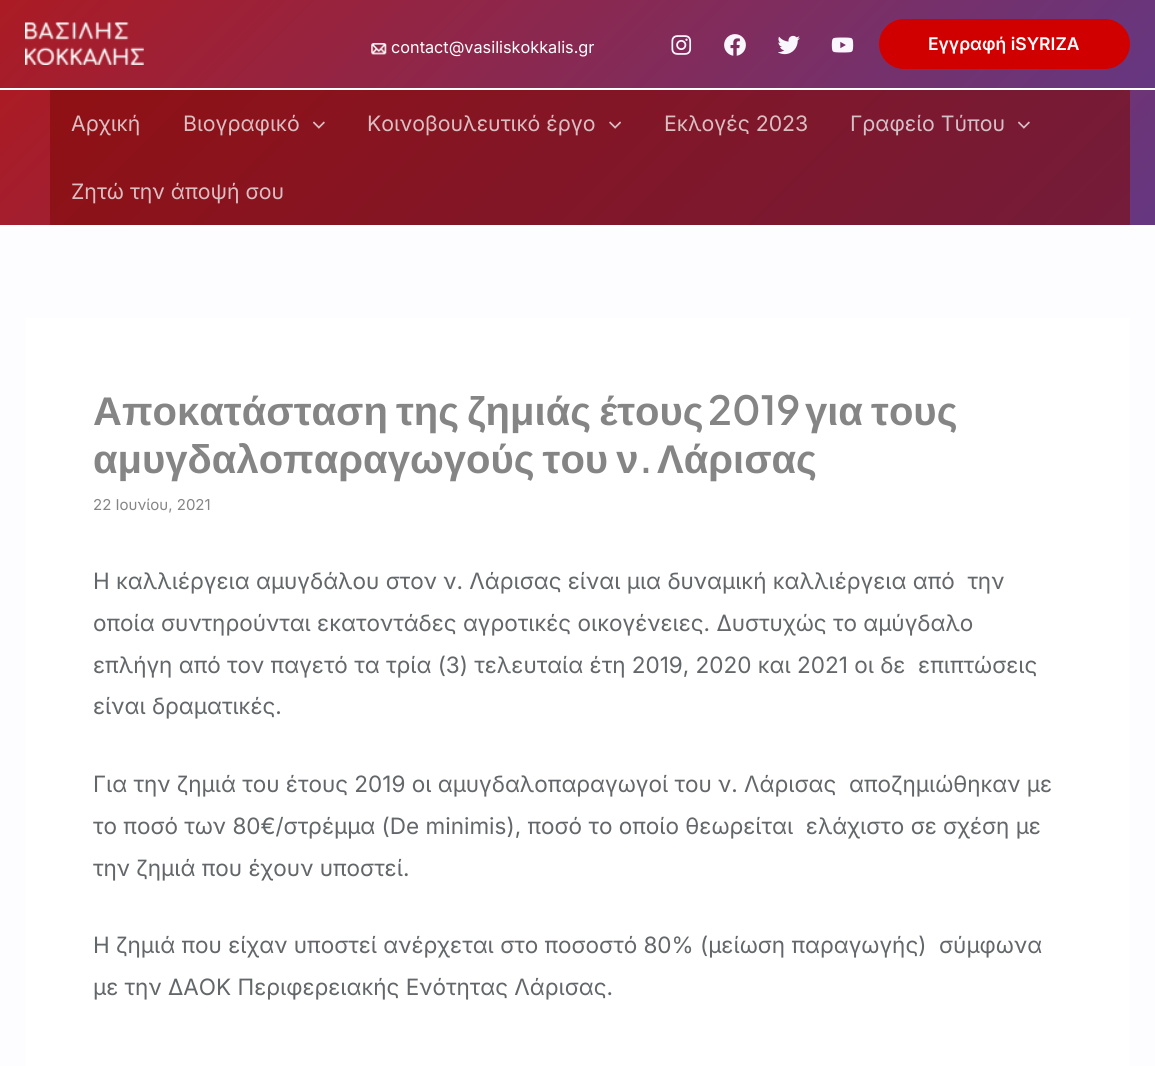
#include <cairo.h>
#include <math.h>
#include <stddef.h>


static void set_color(cairo_t *cr, unsigned color) {
    cairo_set_source_rgb(cr, (color >> 16) / 255.0, (color >> 8 & 255) / 255.0, (color & 255) / 255.0);
}

static void draw_text(cairo_t *cr, double x, double y, const char *s, const char *family, double size, int italic, int bold, unsigned color) {
    cairo_select_font_face(cr, family, italic ? CAIRO_FONT_SLANT_ITALIC : CAIRO_FONT_SLANT_NORMAL,
        bold ? CAIRO_FONT_WEIGHT_BOLD : CAIRO_FONT_WEIGHT_NORMAL);
    cairo_set_font_size(cr, size);
    set_color(cr, color);
    cairo_move_to(cr, x, y);
    cairo_show_text(cr, s);
}

static void draw_spaced(cairo_t *cr, double x, double y, const char *s, double letter, double word) {
    cairo_move_to(cr, x, y);
    while (*s) {
        char ch[5] = {0};
        int n = 0;
        do ch[n++] = *s++; while ((*s & 0xC0) == 0x80);
        cairo_show_text(cr, ch);
        cairo_rel_move_to(cr, letter + word * (*ch == ' '), 0);
    }
}

static void fill_rect(cairo_t *cr, double x, double y, double w, double h, unsigned color) {
    set_color(cr, color);
    cairo_rectangle(cr, x, y, w, h);
    cairo_fill(cr);
}

static void rounded_rect(cairo_t *cr, double x, double y, double w, double h, double r) {
    cairo_new_sub_path(cr);
    cairo_arc(cr, x + w - r, y + h - r, r, 0, M_PI / 2);
    cairo_arc(cr, x + r, y + h - r, r, M_PI / 2, M_PI);
    cairo_arc(cr, x + r, y + r, r, M_PI, 1.5 * M_PI);
    cairo_arc(cr, x + w - r, y + r, r, 1.5 * M_PI, 2 * M_PI);
    cairo_close_path(cr);
}

static void draw_image(cairo_t *cr, const char *path, double x, double y, double w, double h) {
    cairo_surface_t *image = cairo_image_surface_create_from_png(path);
    cairo_save(cr);
    cairo_set_source_surface(cr, image, x, y);
    cairo_rectangle(cr, x, y, w, h);
    cairo_fill(cr);
    cairo_restore(cr);
    cairo_surface_destroy(image);
}

int main(void) {
    cairo_surface_t *surface = cairo_image_surface_create(CAIRO_FORMAT_RGB24, 1155, 1066);
    cairo_t *cr = cairo_create(surface);
    cairo_font_options_t *options = cairo_font_options_create();
    cairo_font_options_set_hint_metrics(options, CAIRO_HINT_METRICS_OFF);
    cairo_font_options_set_hint_style(options, CAIRO_HINT_STYLE_NONE);
    cairo_set_font_options(cr, options);
    cairo_set_miter_limit(cr, 4);
    cairo_pattern_t *gradient;
    set_color(cr, 0xFDFCFF);
    cairo_paint(cr);
    gradient = cairo_pattern_create_linear(267, -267, 888, 354);
    cairo_pattern_add_color_stop_rgba(gradient, 0, 0.671, 0.106, 0.141, 1);
    cairo_pattern_add_color_stop_rgba(gradient, 1, 0.396, 0.216, 0.506, 1);
    cairo_set_source(cr, gradient);
    cairo_pattern_destroy(gradient);
    cairo_rectangle(cr, 0, 0, 1155, 88);
    cairo_fill(cr);
    fill_rect(cr, 0, 88, 1155, 2, 0xFFFFFF);
    draw_image(cr, "assets/img1.png", 25, 22, 119, 43);
    draw_image(cr, "assets/img2.png", 371, 43, 16, 12);
    draw_text(cr, 391, 53, "contact@vasiliskokkalis.gr", "Inter", 16.25, 0, 0, 0xFEFEFE);
    draw_image(cr, "assets/img3.png", 671, 35, 21, 20);
    draw_image(cr, "assets/img4.png", 724, 34, 22, 22);
    draw_image(cr, "assets/img5.png", 778, 35, 22, 20);
    draw_image(cr, "assets/img6.png", 831, 37, 23, 16);
    set_color(cr, 0xD10000);
    rounded_rect(cr, 879, 19, 251, 50, 25);
    cairo_fill(cr);
    draw_text(cr, 928, 50, "Εγγραφή iSYRIZA", "Inter SemiBold", 17.5, 0, 0, 0xFEFEFE);
    gradient = cairo_pattern_create_linear(255, -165, 900, 480);
    cairo_pattern_add_color_stop_rgba(gradient, 0, 0.671, 0.106, 0.141, 1);
    cairo_pattern_add_color_stop_rgba(gradient, 1, 0.396, 0.216, 0.506, 1);
    cairo_set_source(cr, gradient);
    cairo_pattern_destroy(gradient);
    cairo_rectangle(cr, 0, 90, 1155, 135);
    cairo_fill(cr);
    gradient = cairo_pattern_create_linear(255, -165, 900, 480);
    cairo_pattern_add_color_stop_rgba(gradient, 0, 0.569, 0.063, 0.075, 1);
    cairo_pattern_add_color_stop_rgba(gradient, 1, 0.451, 0.11, 0.231, 1);
    cairo_set_source(cr, gradient);
    cairo_pattern_destroy(gradient);
    cairo_rectangle(cr, 50, 90, 1080, 135);
    cairo_fill(cr);
    fill_rect(cr, 0, 225, 1155, 3, 0xFFFFFF);
    draw_text(cr, 71, 131, "Αρχική", "Inter", 21.25, 0, 0, 0xDABEC1);
    draw_text(cr, 183, 131, "Βιογραφικό", "Inter", 21.25, 0, 0, 0xDABEC1);
    draw_image(cr, "assets/img7.png", 313, 121, 12, 8);
    draw_text(cr, 367, 131, "Κοινοβουλευτικό έργο", "Inter", 21.25, 0, 0, 0xDABEC1);
    draw_image(cr, "assets/img8.png", 609, 121, 12, 8);
    draw_text(cr, 664, 131, "Εκλογές 2023", "Inter", 21.25, 0, 0, 0xDABEC1);
    draw_text(cr, 850, 131, "Γραφείο Τύπου", "Inter", 21.25, 0, 0, 0xD5C0C8);
    draw_image(cr, "assets/img9.png", 1018, 121, 12, 8);
    draw_text(cr, 71, 199, "Ζητώ την άποψή σου", "Inter", 21.25, 0, 0, 0xDABEC1);
    fill_rect(cr, 25, 318, 1105, 748, 0xFFFFFF);
    cairo_select_font_face(cr, "Liberation Sans", CAIRO_FONT_SLANT_NORMAL, CAIRO_FONT_WEIGHT_BOLD);
    cairo_set_font_size(cr, 40);
    set_color(cr, 0x858585);
    draw_spaced(cr, 93, 425, "Αποκατάσταση της ζημιάς έτους", 0, -3);
    draw_text(cr, 708, 425, "2019", "Plus Jakarta Sans SemiBold", 40, 0, 0, 0x858585);
    cairo_select_font_face(cr, "Liberation Sans", CAIRO_FONT_SLANT_NORMAL, CAIRO_FONT_WEIGHT_BOLD);
    draw_spaced(cr, 805, 425, "για τους", 0, -3);
    draw_spaced(cr, 93, 473, "αμυγδαλοπαραγωγούς του ν", 0, -3);
    draw_text(cr, 639, 473, ".", "Plus Jakarta Sans SemiBold", 40, 0, 0, 0x858585);
    draw_text(cr, 657, 473, "Λάρισας", "Liberation Sans", 40, 0, 1, 0x858585);
    draw_text(cr, 93, 510, "22 Ιουνίου, 2021", "Inter", 15, 0, 0, 0x858585);
    draw_text(cr, 93, 589, "Η καλλιέργεια αμυγδάλου στον ν. Λάρισας είναι μια δυναμική καλλιέργεια από  την", "Inter", 22.5, 0, 0, 0x63676A);
    draw_text(cr, 93, 631, "οποία συντηρούνται εκατοντάδες αγροτικές οικογένειες. Δυστυχώς το αμύγδαλο", "Inter", 22.5, 0, 0, 0x63676A);
    draw_text(cr, 93, 673, "επλήγη από τον παγετό τα τρία (3) τελευταία έτη 2019, 2020 και 2021 οι δε  επιπτώσεις", "Inter", 22.5, 0, 0, 0x63676A);
    draw_text(cr, 93, 714, "είναι δραματικές.", "Inter", 22.5, 0, 0, 0x63676A);
    draw_text(cr, 93, 792, "Για την ζημιά του έτους 2019 οι αμυγδαλοπαραγωγοί του ν. Λάρισας  αποζημιώθηκαν με", "Inter", 22.5, 0, 0, 0x63676A);
    draw_text(cr, 93, 834, "το ποσό των 80€/στρέμμα (De minimis), ποσό το οποίο θεωρείται  ελάχιστο σε σχέση με", "Inter", 22.5, 0, 0, 0x63676A);
    draw_text(cr, 93, 876, "την ζημιά που έχουν υποστεί.", "Inter", 22.5, 0, 0, 0x63676A);
    draw_text(cr, 93, 953, "Η ζημιά που είχαν υποστεί ανέρχεται στο ποσοστό 80% (μείωση παραγωγής)  σύμφωνα", "Inter", 22.5, 0, 0, 0x63676A);
    draw_text(cr, 93, 995, "με την ΔΑΟΚ Περιφερειακής Ενότητας Λάρισας.", "Inter", 22.5, 0, 0, 0x63676A);
    cairo_surface_write_to_png(surface, "output.png");
    cairo_font_options_destroy(options);
    cairo_destroy(cr);
    cairo_surface_destroy(surface);
    return 0;
}
